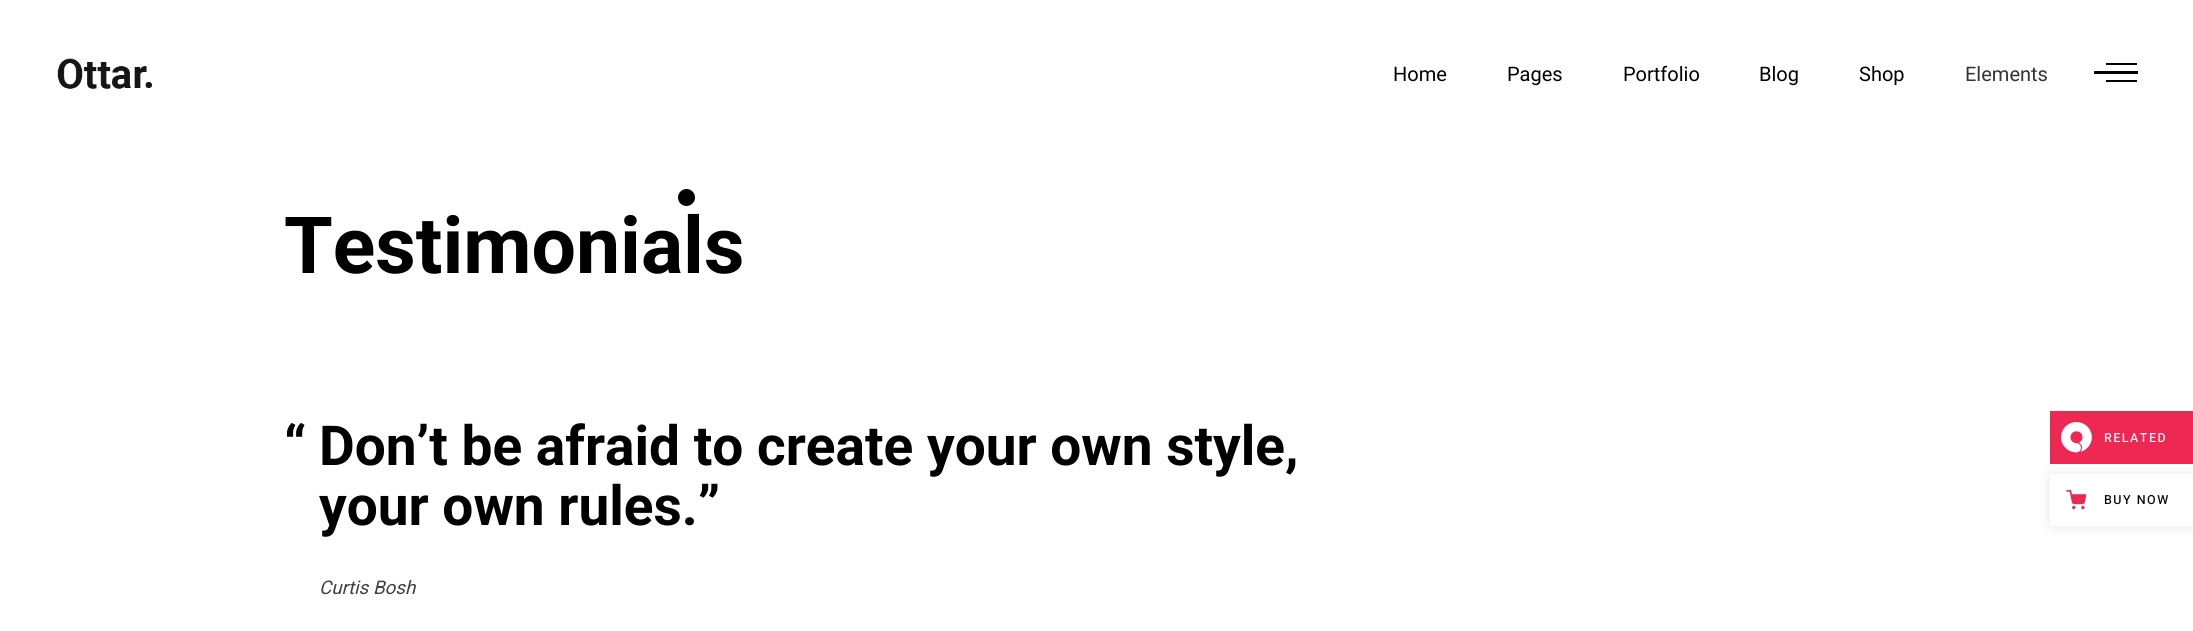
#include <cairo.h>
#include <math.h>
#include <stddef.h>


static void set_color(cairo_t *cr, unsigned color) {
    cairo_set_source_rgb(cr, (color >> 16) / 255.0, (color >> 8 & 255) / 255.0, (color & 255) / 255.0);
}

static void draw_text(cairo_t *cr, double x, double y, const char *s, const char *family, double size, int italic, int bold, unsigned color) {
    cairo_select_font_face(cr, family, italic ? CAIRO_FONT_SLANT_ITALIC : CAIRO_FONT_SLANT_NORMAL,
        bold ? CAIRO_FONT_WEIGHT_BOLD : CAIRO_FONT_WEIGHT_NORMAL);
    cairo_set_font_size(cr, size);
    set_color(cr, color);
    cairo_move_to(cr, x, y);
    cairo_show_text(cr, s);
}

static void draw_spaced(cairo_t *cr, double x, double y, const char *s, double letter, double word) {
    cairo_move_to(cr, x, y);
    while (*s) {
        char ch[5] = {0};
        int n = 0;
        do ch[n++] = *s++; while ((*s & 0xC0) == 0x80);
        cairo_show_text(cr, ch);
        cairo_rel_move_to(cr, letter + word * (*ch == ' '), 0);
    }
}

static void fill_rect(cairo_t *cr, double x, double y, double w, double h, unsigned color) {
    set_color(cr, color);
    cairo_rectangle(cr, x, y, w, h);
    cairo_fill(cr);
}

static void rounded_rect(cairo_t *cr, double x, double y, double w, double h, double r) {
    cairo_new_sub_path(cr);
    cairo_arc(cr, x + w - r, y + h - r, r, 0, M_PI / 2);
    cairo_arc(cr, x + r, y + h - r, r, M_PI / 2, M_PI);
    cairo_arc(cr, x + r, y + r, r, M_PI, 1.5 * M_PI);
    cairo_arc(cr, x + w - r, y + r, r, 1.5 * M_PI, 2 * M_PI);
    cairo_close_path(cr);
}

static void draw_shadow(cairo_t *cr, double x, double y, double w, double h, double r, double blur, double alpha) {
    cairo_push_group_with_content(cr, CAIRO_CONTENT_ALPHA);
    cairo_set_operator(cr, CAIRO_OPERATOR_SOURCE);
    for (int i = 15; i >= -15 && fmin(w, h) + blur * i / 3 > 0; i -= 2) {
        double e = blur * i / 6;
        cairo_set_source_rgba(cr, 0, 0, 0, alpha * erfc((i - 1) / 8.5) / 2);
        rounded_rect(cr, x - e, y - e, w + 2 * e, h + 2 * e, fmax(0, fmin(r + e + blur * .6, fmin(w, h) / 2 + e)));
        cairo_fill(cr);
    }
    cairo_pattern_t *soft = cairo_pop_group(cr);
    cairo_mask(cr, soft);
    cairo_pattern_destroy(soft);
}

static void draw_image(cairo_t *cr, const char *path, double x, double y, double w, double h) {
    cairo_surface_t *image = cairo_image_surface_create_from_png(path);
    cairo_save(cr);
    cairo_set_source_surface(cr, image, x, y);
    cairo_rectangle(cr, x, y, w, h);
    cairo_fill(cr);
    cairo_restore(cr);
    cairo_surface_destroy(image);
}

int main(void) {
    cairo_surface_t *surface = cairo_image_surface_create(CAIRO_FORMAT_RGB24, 2193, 631);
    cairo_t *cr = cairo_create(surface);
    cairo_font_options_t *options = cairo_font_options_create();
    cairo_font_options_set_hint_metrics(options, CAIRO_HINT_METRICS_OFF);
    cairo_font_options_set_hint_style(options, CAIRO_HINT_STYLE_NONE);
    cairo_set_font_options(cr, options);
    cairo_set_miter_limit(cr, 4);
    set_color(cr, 0xFFFFFF);
    cairo_paint(cr);
    draw_image(cr, "assets/img1.png", 57, 58, 96, 31);
    draw_text(cr, 1393, 81, "Home", "Roboto", 20, 0, 0, 0x000000);
    draw_text(cr, 1507, 81, "Pages", "Roboto", 20, 0, 0, 0x000000);
    draw_text(cr, 1623, 81, "Portfolio", "Roboto", 20, 0, 0, 0x000000);
    draw_text(cr, 1759, 81, "Blog", "Roboto", 20, 0, 0, 0x000000);
    draw_text(cr, 1859, 81, "Shop", "Roboto", 20, 0, 0, 0x000000);
    draw_text(cr, 1965, 81, "Elements", "Roboto", 20, 0, 0, 0x333333);
    fill_rect(cr, 2106, 63, 31, 2, 0x000000);
    fill_rect(cr, 2094, 71, 44, 3, 0x000000);
    fill_rect(cr, 2106, 80, 31, 2, 0x000000);
    draw_text(cr, 284, 273, "Testimonials", "Roboto", 78.75, 0, 1, 0x000000);
    draw_text(cr, 284, 465, "“", "Roboto", 55, 0, 1, 0x000000);
    draw_text(cr, 319, 465, "Don’t be afraid to create your own style,", "Roboto", 55, 0, 1, 0x000000);
    draw_text(cr, 319, 525, "your own rules.”", "Roboto", 55, 0, 1, 0x000000);
    draw_text(cr, 319, 594, "Curtis Bosh", "Roboto", 18.75, 1, 0, 0x414042);
    set_color(cr, 0x000000);
    cairo_new_path(cr);
    cairo_arc(cr, 686.5, 197.5, 8.5, 0, 2 * M_PI);
    cairo_fill(cr);
    fill_rect(cr, 2050, 411, 143, 53, 0xEF2853);
    draw_image(cr, "assets/img2.png", 2061, 422, 31, 31);
    cairo_select_font_face(cr, "Heebo Medium", CAIRO_FONT_SLANT_NORMAL, CAIRO_FONT_WEIGHT_NORMAL);
    cairo_set_font_size(cr, 12.5);
    set_color(cr, 0xFFFFFF);
    draw_spaced(cr, 2104, 442, "RELATED", 1.5, 0);
    cairo_save(cr);
    cairo_set_fill_rule(cr, CAIRO_FILL_RULE_EVEN_ODD);
    cairo_new_path(cr);
    cairo_move_to(cr, 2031, 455);
    cairo_line_to(cr, 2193, 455);
    cairo_line_to(cr, 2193, 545);
    cairo_line_to(cr, 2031, 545);
    cairo_close_path(cr);
    cairo_move_to(cr, 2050, 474);
    cairo_line_to(cr, 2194, 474);
    cairo_line_to(cr, 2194, 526);
    cairo_line_to(cr, 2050, 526);
    cairo_close_path(cr);
    cairo_clip(cr);
    set_color(cr, 0x000000);
    draw_shadow(cr, 2050, 474, 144, 52, 0, 6, 0.1);
    cairo_restore(cr);
    draw_image(cr, "assets/img3.png", 2066, 490, 20, 20);
    set_color(cr, 0x000000);
    draw_spaced(cr, 2104, 504, "BUY NOW", 1.5, 0);
    cairo_surface_write_to_png(surface, "output.png");
    cairo_font_options_destroy(options);
    cairo_destroy(cr);
    cairo_surface_destroy(surface);
    return 0;
}
